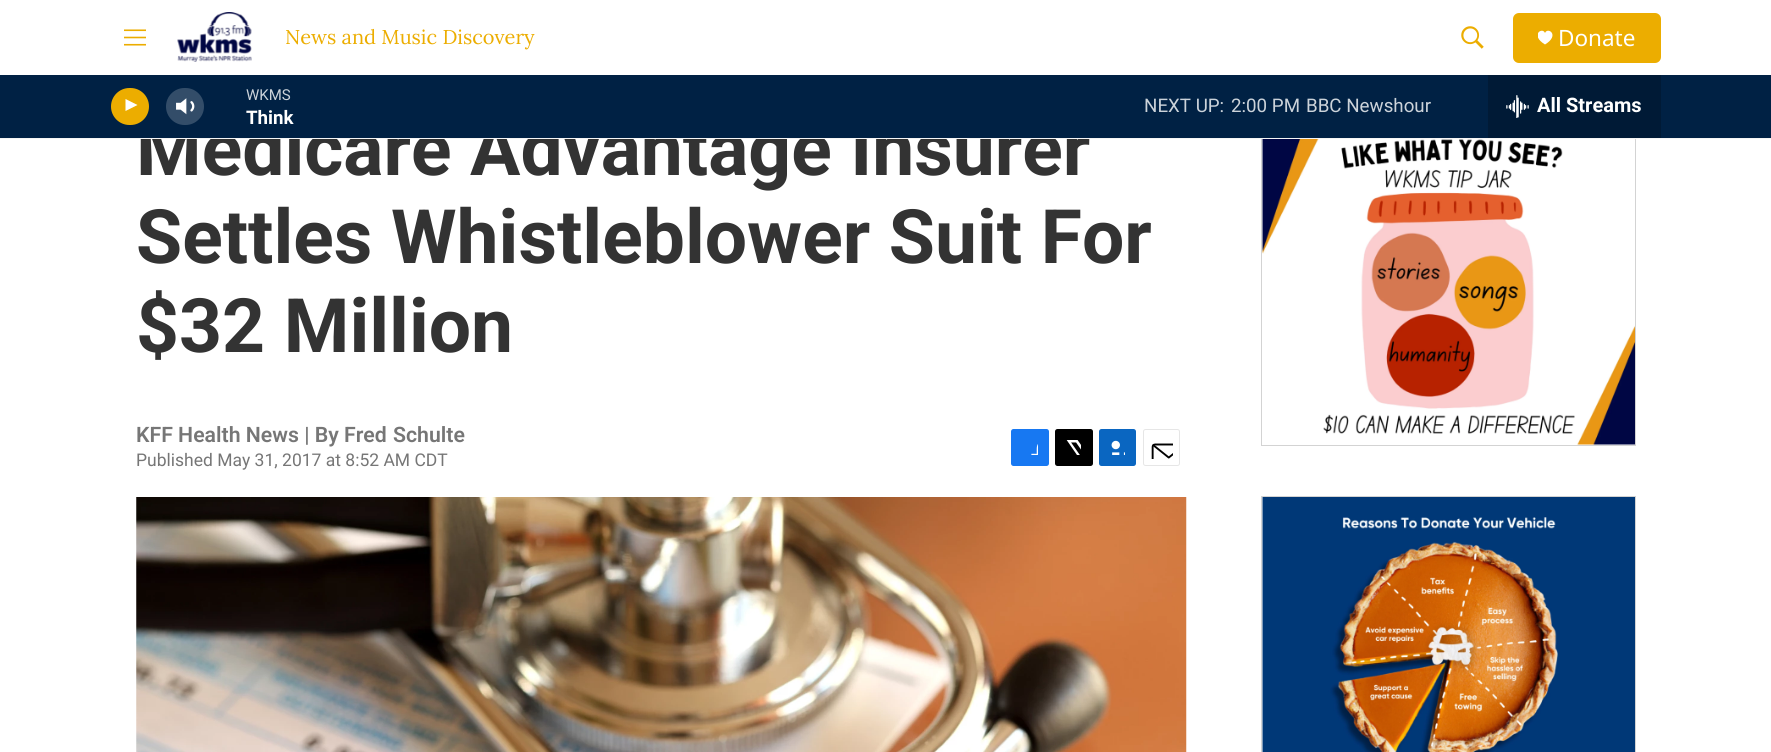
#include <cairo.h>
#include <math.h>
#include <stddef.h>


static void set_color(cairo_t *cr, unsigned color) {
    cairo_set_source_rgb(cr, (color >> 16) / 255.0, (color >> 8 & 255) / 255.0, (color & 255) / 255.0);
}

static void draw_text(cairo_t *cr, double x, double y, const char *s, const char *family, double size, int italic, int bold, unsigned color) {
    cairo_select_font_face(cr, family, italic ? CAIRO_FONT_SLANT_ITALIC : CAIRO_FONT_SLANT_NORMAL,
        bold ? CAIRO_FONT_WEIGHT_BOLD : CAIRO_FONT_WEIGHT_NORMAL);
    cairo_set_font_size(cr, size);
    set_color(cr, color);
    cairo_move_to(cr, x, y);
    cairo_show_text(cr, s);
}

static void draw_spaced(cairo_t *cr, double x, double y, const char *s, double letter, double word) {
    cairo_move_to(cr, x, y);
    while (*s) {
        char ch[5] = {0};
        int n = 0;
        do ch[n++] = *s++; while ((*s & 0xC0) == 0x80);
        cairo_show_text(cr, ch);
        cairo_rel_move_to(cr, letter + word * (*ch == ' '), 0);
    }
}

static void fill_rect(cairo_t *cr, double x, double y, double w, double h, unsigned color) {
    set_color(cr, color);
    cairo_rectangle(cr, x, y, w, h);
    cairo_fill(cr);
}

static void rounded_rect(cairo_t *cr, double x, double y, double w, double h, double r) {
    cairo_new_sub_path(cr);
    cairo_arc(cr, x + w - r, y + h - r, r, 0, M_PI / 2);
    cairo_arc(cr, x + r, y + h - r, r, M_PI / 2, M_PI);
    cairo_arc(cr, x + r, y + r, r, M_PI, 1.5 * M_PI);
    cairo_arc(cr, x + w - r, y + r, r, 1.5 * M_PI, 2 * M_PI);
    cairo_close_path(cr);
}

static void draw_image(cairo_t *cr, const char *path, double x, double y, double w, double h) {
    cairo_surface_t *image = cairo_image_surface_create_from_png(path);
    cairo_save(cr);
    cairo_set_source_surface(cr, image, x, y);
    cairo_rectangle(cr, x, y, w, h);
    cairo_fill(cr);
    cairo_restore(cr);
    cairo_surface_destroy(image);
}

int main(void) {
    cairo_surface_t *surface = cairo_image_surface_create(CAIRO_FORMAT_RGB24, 1771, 752);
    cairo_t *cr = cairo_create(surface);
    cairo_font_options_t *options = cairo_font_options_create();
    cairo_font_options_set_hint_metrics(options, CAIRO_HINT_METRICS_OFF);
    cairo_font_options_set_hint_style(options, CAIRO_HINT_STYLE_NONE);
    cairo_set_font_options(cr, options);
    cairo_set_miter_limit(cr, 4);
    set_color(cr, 0xFFFFFF);
    cairo_paint(cr);
    draw_text(cr, 136, 175, "Medicare Advantage Insurer", "Roboto", 75, 0, 1, 0x333333);
    cairo_rectangle(cr, 1261.5, 131.5, 374, 314);
    set_color(cr, 0xD3D3D3);
    cairo_set_line_width(cr, 1);
    cairo_stroke(cr);
    fill_rect(cr, 0, 138, 1771, 1, 0xF5F5F5);
    draw_image(cr, "assets/img1.png", 124, 29, 22, 17);
    draw_image(cr, "assets/img2.png", 177, 12, 75, 50);
    draw_text(cr, 285, 44, "News and Music Discovery", "Lora", 20, 0, 0, 0xECAD00);
    draw_image(cr, "assets/img3.png", 1461, 26, 23, 23);
    rounded_rect(cr, 1513, 13, 148, 50, 6);
    cairo_fill(cr);
    cairo_save(cr);
    cairo_rectangle(cr, 1538, 30, 15, 15);
    cairo_clip(cr);
    set_color(cr, 0xFFFFFF);
    cairo_new_path(cr);
    cairo_move_to(cr, 1545, 33);
    cairo_curve_to(cr, 1542.5, 26.5, 1529.5, 35, 1545, 44.5);
    cairo_curve_to(cr, 1560.5, 35, 1547.5, 26.5, 1545, 33);
    cairo_close_path(cr);
    cairo_fill(cr);
    cairo_restore(cr);
    draw_text(cr, 1558, 46, "Donate", "Noto Sans", 22.5, 0, 0, 0xFFFFFF);
    fill_rect(cr, 0, 75, 1771, 63, 0x002144);
    set_color(cr, 0xECAD00);
    rounded_rect(cr, 111, 88, 38, 37, 18.5);
    cairo_fill(cr);
    set_color(cr, 0xFFFFFF);
    cairo_new_path(cr);
    cairo_move_to(cr, 125.5, 99);
    cairo_line_to(cr, 137.5, 105);
    cairo_line_to(cr, 125.5, 111);
    cairo_close_path(cr);
    cairo_fill(cr);
    draw_image(cr, "assets/img4.png", 176, 98, 19, 17);
    cairo_set_source_rgba(cr, 1, 1, 1, 0.2);
    rounded_rect(cr, 166, 88, 38, 37, 18.5);
    cairo_fill(cr);
    draw_text(cr, 246, 100, "WKMS", "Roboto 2", 15, 0, 0, 0xCCD3DA);
    draw_text(cr, 246, 124, "Think", "Roboto 2", 18.75, 0, 1, 0xFFFFFF);
    draw_text(cr, 1144, 112, "NEXT UP:", "Roboto 2", 18.75, 0, 0, 0xCCD3DA);
    draw_text(cr, 1231, 112, "2:00 PM", "Roboto 2", 18.75, 0, 0, 0xCCD3DA);
    draw_text(cr, 1306, 112, "BBC Newshour", "Roboto 2", 18.75, 0, 0, 0xCCD3DA);
    fill_rect(cr, 1488, 75, 173, 63, 0x001A36);
    draw_image(cr, "assets/img5.png", 1506, 95, 23, 23);
    draw_text(cr, 1537, 112, "All Streams", "Roboto 2", 20, 0, 1, 0xFFFFFF);
    draw_text(cr, 136, 263, "Settles Whistleblower Suit For", "Roboto", 75, 0, 1, 0x333333);
    draw_text(cr, 136, 352, "$32 Million", "Roboto", 75, 0, 1, 0x333333);
    draw_text(cr, 136, 442, "KFF Health News | By", "Roboto SemiBold", 21.25, 0, 0, 0x767676);
    draw_spaced(cr, 344, 442, "Fred Schulte", 0, 1);
    draw_text(cr, 136, 466, "Published May 31, 2017 at 8:52 AM CDT", "Roboto", 17.5, 0, 0, 0x767676);
    set_color(cr, 0x1778F2);
    rounded_rect(cr, 1011, 429, 38, 37, 2.5);
    cairo_fill(cr);
    draw_image(cr, "assets/img6.png", 1031, 444, 7, 11);
    set_color(cr, 0x000000);
    rounded_rect(cr, 1055, 429, 38, 37, 2.5);
    cairo_fill(cr);
    draw_image(cr, "assets/img7.png", 1066, 440, 15, 15);
    set_color(cr, 0x0A66C1);
    rounded_rect(cr, 1099, 429, 37, 37, 2.5);
    cairo_fill(cr);
    draw_image(cr, "assets/img8.png", 1111, 440, 14, 15);
    rounded_rect(cr, 1143.5, 429.5, 36, 36, 2);
    set_color(cr, 0xE6E6E6);
    cairo_stroke(cr);
    draw_image(cr, "assets/img9.png", 1151, 443, 22, 16);
    draw_image(cr, "assets/img10.png", 136, 497, 1051, 255);
    draw_image(cr, "assets/img11.png", 1262, 139, 373, 306);
    cairo_rectangle(cr, 1261.5, 496.5, 374, 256);
    set_color(cr, 0xD3D3D3);
    cairo_stroke(cr);
    draw_image(cr, "assets/img12.png", 1262, 497, 373, 255);
    cairo_surface_write_to_png(surface, "output.png");
    cairo_font_options_destroy(options);
    cairo_destroy(cr);
    cairo_surface_destroy(surface);
    return 0;
}
